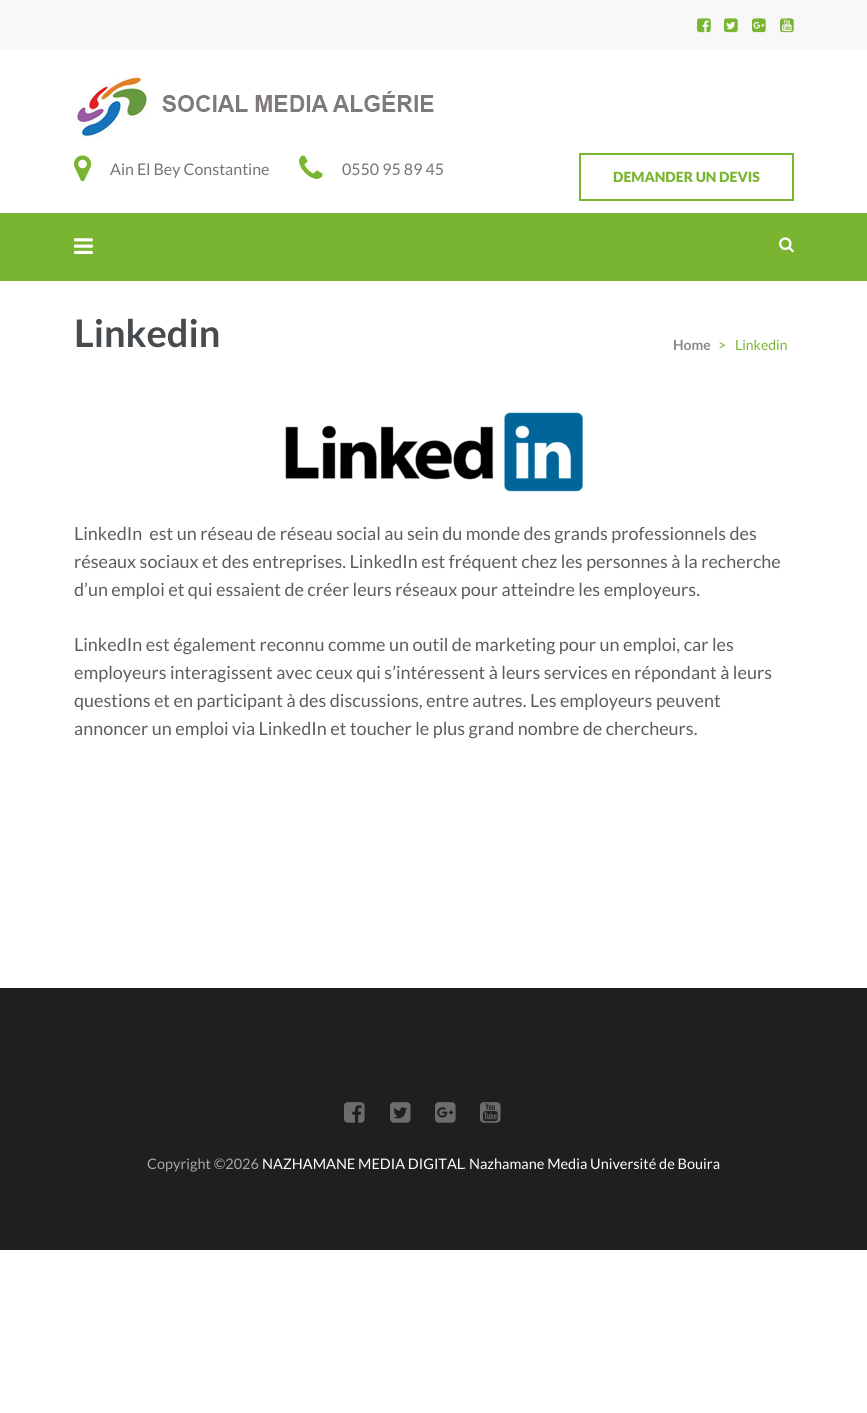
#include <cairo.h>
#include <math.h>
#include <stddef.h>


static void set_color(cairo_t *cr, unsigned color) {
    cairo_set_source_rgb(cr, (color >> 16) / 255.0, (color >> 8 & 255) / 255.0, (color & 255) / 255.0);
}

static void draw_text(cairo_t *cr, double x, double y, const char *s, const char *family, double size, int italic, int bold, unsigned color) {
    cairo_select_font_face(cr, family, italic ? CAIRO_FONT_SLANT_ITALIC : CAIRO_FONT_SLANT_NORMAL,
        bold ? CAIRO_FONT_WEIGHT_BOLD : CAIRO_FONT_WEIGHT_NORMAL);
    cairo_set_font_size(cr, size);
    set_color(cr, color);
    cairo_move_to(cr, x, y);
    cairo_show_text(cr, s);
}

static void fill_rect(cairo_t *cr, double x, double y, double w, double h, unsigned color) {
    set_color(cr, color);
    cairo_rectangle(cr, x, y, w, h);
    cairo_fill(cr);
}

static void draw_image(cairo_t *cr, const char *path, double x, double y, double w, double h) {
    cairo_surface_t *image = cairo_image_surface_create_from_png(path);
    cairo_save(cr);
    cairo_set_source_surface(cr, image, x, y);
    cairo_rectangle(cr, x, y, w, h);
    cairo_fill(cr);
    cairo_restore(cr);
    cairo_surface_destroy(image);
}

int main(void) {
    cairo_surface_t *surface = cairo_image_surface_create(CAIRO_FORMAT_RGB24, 867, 1413);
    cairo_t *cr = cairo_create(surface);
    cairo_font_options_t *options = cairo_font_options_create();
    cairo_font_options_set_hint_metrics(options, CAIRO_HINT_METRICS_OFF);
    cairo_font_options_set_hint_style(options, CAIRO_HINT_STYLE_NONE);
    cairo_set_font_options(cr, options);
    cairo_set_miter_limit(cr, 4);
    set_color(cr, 0xFFFFFF);
    cairo_paint(cr);
    fill_rect(cr, 0, 0, 867, 50, 0xF8F8F8);
    draw_image(cr, "assets/img1.png", 697, 18, 14, 15);
    draw_image(cr, "assets/img2.png", 724, 18, 14, 15);
    draw_image(cr, "assets/img3.png", 752, 18, 14, 15);
    draw_image(cr, "assets/img4.png", 780, 18, 14, 15);
    draw_image(cr, "assets/img5.png", 75, 76, 359, 62);
    draw_image(cr, "assets/img6.png", 74, 155, 18, 27);
    draw_text(cr, 110, 175, "Ain El Bey Constantine", "Lato", 16, 0, 0, 0x747474);
    draw_image(cr, "assets/img7.png", 299, 155, 24, 24);
    draw_text(cr, 342, 175, "0550 95 89 45", "Lato", 16, 0, 0, 0x747474);
    cairo_rectangle(cr, 580, 154, 213, 46);
    set_color(cr, 0x79B530);
    cairo_stroke(cr);
    draw_text(cr, 613, 182, "DEMANDER UN DEVIS", "Lato Black", 14, 0, 0, 0x79B530);
    fill_rect(cr, 0, 213, 867, 68, 0x79B530);
    draw_image(cr, "assets/img8.png", 74, 238, 19, 16);
    draw_image(cr, "assets/img9.png", 779, 237, 15, 16);
    draw_text(cr, 74, 347, "Linkedin", "Lato", 38, 0, 1, 0x474B4E);
    draw_text(cr, 673, 350, "Home", "Lato", 14, 0, 1, 0x878B8D);
    draw_text(cr, 718, 350, ">", "Lato", 14, 0, 0, 0x79B530);
    draw_text(cr, 735, 350, "Linkedin", "Lato", 14, 0, 0, 0x79B530);
    draw_image(cr, "assets/img10.png", 285, 412, 298, 80);
    draw_text(cr, 74, 540, "LinkedIn  est un réseau de réseau social au sein du monde des grands professionnels des", "Lato", 18, 0, 0, 0x5D5D5D);
    draw_text(cr, 74, 568, "réseaux sociaux et des entreprises. LinkedIn est fréquent chez les personnes à la recherche", "Lato", 18, 0, 0, 0x5D5D5D);
    draw_text(cr, 74, 596, "d’un emploi et qui essaient de créer leurs réseaux pour atteindre les employeurs.", "Lato", 18, 0, 0, 0x5D5D5D);
    draw_text(cr, 74, 651, "LinkedIn est également reconnu comme un outil de marketing pour un emploi, car les", "Lato", 18, 0, 0, 0x5D5D5D);
    draw_text(cr, 74, 679, "employeurs interagissent avec ceux qui s’intéressent à leurs services en répondant à leurs", "Lato", 18, 0, 0, 0x5D5D5D);
    draw_text(cr, 74, 707, "questions et en participant à des discussions, entre autres. Les employeurs peuvent", "Lato", 18, 0, 0, 0x5D5D5D);
    draw_text(cr, 74, 735, "annoncer un emploi via LinkedIn et toucher le plus grand nombre de chercheurs.", "Lato", 18, 0, 0, 0x5D5D5D);
    fill_rect(cr, 0, 988, 867, 262, 0x1F1F1F);
    draw_image(cr, "assets/img11.png", 344, 1102, 21, 21);
    draw_image(cr, "assets/img12.png", 390, 1102, 21, 21);
    draw_image(cr, "assets/img13.png", 435, 1102, 21, 21);
    draw_image(cr, "assets/img14.png", 480, 1102, 21, 21);
    draw_text(cr, 147, 1169, "Copyright ©2026", "Lato", 14.5, 0, 0, 0xA6A6A6);
    draw_text(cr, 262, 1169, "NAZHAMANE MEDIA DIGITAL", "Lato", 14.5, 0, 0, 0xFFFFFF);
    draw_text(cr, 463, 1169, ".", "Lato", 14.5, 0, 0, 0xA6A6A6);
    draw_text(cr, 469, 1169, "Nazhamane Media Université de Bouira", "Lato", 14.5, 0, 0, 0xFFFFFF);
    cairo_surface_write_to_png(surface, "output.png");
    cairo_font_options_destroy(options);
    cairo_destroy(cr);
    cairo_surface_destroy(surface);
    return 0;
}
